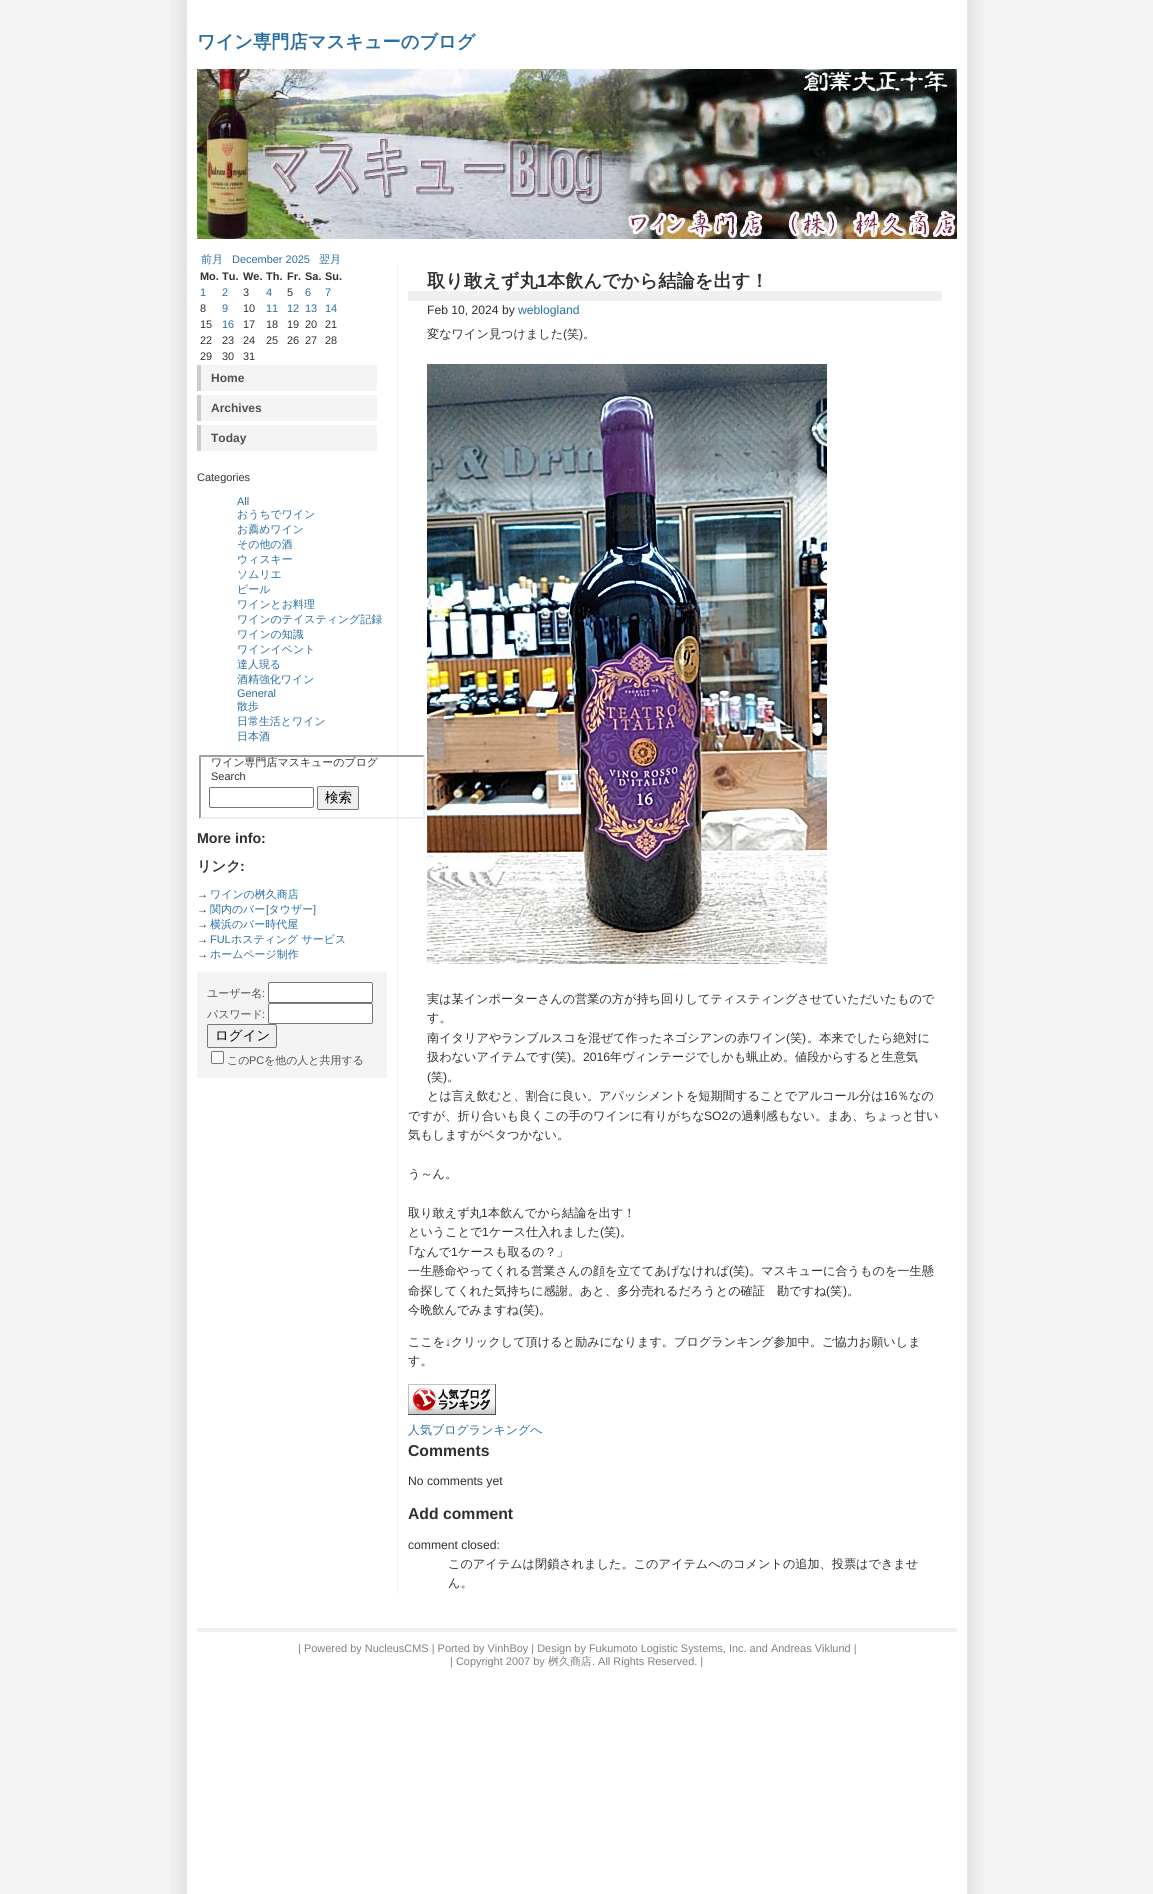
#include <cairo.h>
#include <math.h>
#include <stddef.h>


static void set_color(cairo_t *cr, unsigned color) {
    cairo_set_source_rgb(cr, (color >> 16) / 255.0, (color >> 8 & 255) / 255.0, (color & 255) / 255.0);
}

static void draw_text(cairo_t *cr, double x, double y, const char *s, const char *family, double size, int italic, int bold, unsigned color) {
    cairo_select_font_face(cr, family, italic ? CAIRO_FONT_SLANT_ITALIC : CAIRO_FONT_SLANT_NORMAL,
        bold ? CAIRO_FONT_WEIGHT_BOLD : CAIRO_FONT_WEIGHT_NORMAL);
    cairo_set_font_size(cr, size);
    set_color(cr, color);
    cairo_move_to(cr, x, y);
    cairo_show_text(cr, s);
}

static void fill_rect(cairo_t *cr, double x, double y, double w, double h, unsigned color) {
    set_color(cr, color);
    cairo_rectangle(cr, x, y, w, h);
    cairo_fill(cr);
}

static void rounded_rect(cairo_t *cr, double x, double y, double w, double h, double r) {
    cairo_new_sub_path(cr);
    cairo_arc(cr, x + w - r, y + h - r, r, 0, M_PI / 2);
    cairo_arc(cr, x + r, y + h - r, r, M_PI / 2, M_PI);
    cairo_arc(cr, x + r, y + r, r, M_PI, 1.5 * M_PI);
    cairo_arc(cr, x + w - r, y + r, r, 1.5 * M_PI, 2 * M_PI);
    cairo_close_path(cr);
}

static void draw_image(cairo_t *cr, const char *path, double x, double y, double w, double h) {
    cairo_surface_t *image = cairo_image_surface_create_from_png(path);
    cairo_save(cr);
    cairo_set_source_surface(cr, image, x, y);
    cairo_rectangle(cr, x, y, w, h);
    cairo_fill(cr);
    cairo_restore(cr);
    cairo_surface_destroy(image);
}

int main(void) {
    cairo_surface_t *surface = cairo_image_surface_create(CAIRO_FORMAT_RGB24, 1153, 1894);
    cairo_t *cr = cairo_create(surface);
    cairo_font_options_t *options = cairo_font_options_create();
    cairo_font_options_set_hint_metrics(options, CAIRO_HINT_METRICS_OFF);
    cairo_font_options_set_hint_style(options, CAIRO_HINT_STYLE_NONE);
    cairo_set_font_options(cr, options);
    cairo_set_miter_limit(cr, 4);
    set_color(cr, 0xF4F4F4);
    cairo_paint(cr);
    draw_image(cr, "assets/img1.png", 170, 0, 814, 1894);
    draw_text(cr, 197, 48, "ワイン専門店マスキューのブログ", "WenQuanYi Zen Hei", 18.25, 0, 1, 0x286EA0);
    draw_image(cr, "assets/img2.png", 197, 69, 760, 170);
    draw_text(cr, 201, 263, "前月", "WenQuanYi Zen Hei Medium", 10.95, 0, 0, 0x286EA0);
    draw_text(cr, 232, 263, "December 2025", "Liberation Sans", 10.95, 0, 0, 0x286EA0);
    draw_text(cr, 319, 263, "翌月", "WenQuanYi Zen Hei Medium", 10.95, 0, 0, 0x286EA0);
    draw_text(cr, 200, 280, "Mo.", "Liberation Sans", 10.95, 0, 1, 0x303030);
    draw_text(cr, 222, 280, "Tu.", "Liberation Sans", 10.95, 0, 1, 0x303030);
    draw_text(cr, 243, 280, "We.", "Liberation Sans", 10.95, 0, 1, 0x303030);
    draw_text(cr, 266, 280, "Th.", "Liberation Sans", 10.95, 0, 1, 0x303030);
    draw_text(cr, 287, 280, "Fr.", "Liberation Sans", 10.95, 0, 1, 0x303030);
    draw_text(cr, 305, 280, "Sa.", "Liberation Sans", 10.95, 0, 1, 0x303030);
    draw_text(cr, 325, 280, "Su.", "Liberation Sans", 10.95, 0, 1, 0x303030);
    draw_text(cr, 200, 296, "1", "Liberation Sans", 10.95, 0, 0, 0x286EA0);
    draw_text(cr, 222, 296, "2", "Liberation Sans", 10.95, 0, 0, 0x286EA0);
    draw_text(cr, 243, 296, "3", "Liberation Sans", 10.95, 0, 0, 0x303030);
    draw_text(cr, 266, 296, "4", "Liberation Sans", 10.95, 0, 0, 0x286EA0);
    draw_text(cr, 287, 296, "5", "Liberation Sans", 10.95, 0, 0, 0x303030);
    draw_text(cr, 305, 296, "6", "Liberation Sans", 10.95, 0, 0, 0x286EA0);
    draw_text(cr, 325, 296, "7", "Liberation Sans", 10.95, 0, 0, 0x286EA0);
    draw_text(cr, 200, 312, "8", "Liberation Sans", 10.95, 0, 0, 0x303030);
    draw_text(cr, 222, 312, "9", "Liberation Sans", 10.95, 0, 0, 0x286EA0);
    draw_text(cr, 243, 312, "10", "Liberation Sans", 10.95, 0, 0, 0x303030);
    draw_text(cr, 266, 312, "11", "Liberation Sans", 10.95, 0, 0, 0x286EA0);
    draw_text(cr, 287, 312, "12", "Liberation Sans", 10.95, 0, 0, 0x286EA0);
    draw_text(cr, 305, 312, "13", "Liberation Sans", 10.95, 0, 0, 0x286EA0);
    draw_text(cr, 325, 312, "14", "Liberation Sans", 10.95, 0, 0, 0x286EA0);
    draw_text(cr, 200, 328, "15", "Liberation Sans", 10.95, 0, 0, 0x303030);
    draw_text(cr, 222, 328, "16", "Liberation Sans", 10.95, 0, 0, 0x286EA0);
    draw_text(cr, 243, 328, "17", "Liberation Sans", 10.95, 0, 0, 0x303030);
    draw_text(cr, 266, 328, "18", "Liberation Sans", 10.95, 0, 0, 0x303030);
    draw_text(cr, 287, 328, "19", "Liberation Sans", 10.95, 0, 0, 0x303030);
    draw_text(cr, 305, 328, "20", "Liberation Sans", 10.95, 0, 0, 0x303030);
    draw_text(cr, 325, 328, "21", "Liberation Sans", 10.95, 0, 0, 0x303030);
    draw_text(cr, 200, 344, "22", "Liberation Sans", 10.95, 0, 0, 0x303030);
    draw_text(cr, 222, 344, "23", "Liberation Sans", 10.95, 0, 0, 0x303030);
    draw_text(cr, 243, 344, "24", "Liberation Sans", 10.95, 0, 0, 0x303030);
    draw_text(cr, 266, 344, "25", "Liberation Sans", 10.95, 0, 0, 0x303030);
    draw_text(cr, 287, 344, "26", "Liberation Sans", 10.95, 0, 0, 0x303030);
    draw_text(cr, 305, 344, "27", "Liberation Sans", 10.95, 0, 0, 0x303030);
    draw_text(cr, 325, 344, "28", "Liberation Sans", 10.95, 0, 0, 0x303030);
    draw_text(cr, 200, 360, "29", "Liberation Sans", 10.95, 0, 0, 0x303030);
    draw_text(cr, 222, 360, "30", "Liberation Sans", 10.95, 0, 0, 0x303030);
    draw_text(cr, 243, 360, "31", "Liberation Sans", 10.95, 0, 0, 0x303030);
    fill_rect(cr, 201, 365, 176, 26, 0xF4F4F4);
    fill_rect(cr, 197, 365, 4, 26, 0xCCCCCC);
    draw_text(cr, 211, 382, "Home", "Liberation Sans", 12, 0, 1, 0x505050);
    fill_rect(cr, 201, 395, 176, 26, 0xF4F4F4);
    fill_rect(cr, 197, 395, 4, 26, 0xCCCCCC);
    draw_text(cr, 211, 412, "Archives", "Liberation Sans", 12, 0, 1, 0x505050);
    fill_rect(cr, 201, 425, 176, 26, 0xF4F4F4);
    fill_rect(cr, 197, 425, 4, 26, 0xCCCCCC);
    draw_text(cr, 211, 442, "Today", "Liberation Sans", 12, 0, 1, 0x505050);
    draw_text(cr, 197, 481, "Categories", "Liberation Sans", 10.95, 0, 0, 0x303030);
    draw_text(cr, 237, 505, "All", "Liberation Sans", 10.95, 0, 0, 0x286EA0);
    draw_text(cr, 237, 518, "おうちでワイン", "WenQuanYi Zen Hei Medium", 10.95, 0, 0, 0x286EA0);
    draw_text(cr, 237, 533, "お薦めワイン", "WenQuanYi Zen Hei Medium", 10.95, 0, 0, 0x286EA0);
    draw_text(cr, 237, 548, "その他の酒", "WenQuanYi Zen Hei Medium", 10.95, 0, 0, 0x286EA0);
    draw_text(cr, 237, 563, "ウィスキー", "WenQuanYi Zen Hei Medium", 10.95, 0, 0, 0x286EA0);
    draw_text(cr, 237, 578, "ソムリエ", "WenQuanYi Zen Hei Medium", 10.95, 0, 0, 0x286EA0);
    draw_text(cr, 237, 593, "ビール", "WenQuanYi Zen Hei Medium", 10.95, 0, 0, 0x286EA0);
    draw_text(cr, 237, 608, "ワインとお料理", "WenQuanYi Zen Hei Medium", 10.95, 0, 0, 0x286EA0);
    draw_text(cr, 237, 623, "ワインのテイスティング記録", "WenQuanYi Zen Hei Medium", 10.95, 0, 0, 0x286EA0);
    draw_text(cr, 237, 638, "ワインの知識", "WenQuanYi Zen Hei Medium", 10.95, 0, 0, 0x286EA0);
    draw_text(cr, 237, 653, "ワインイベント", "WenQuanYi Zen Hei Medium", 10.95, 0, 0, 0x286EA0);
    draw_text(cr, 237, 668, "達人現る", "WenQuanYi Zen Hei Medium", 10.95, 0, 0, 0x286EA0);
    draw_text(cr, 237, 683, "酒精強化ワイン", "WenQuanYi Zen Hei Medium", 10.95, 0, 0, 0x286EA0);
    draw_text(cr, 237, 697, "General", "Liberation Sans", 10.95, 0, 0, 0x286EA0);
    draw_text(cr, 237, 710, "散歩", "WenQuanYi Zen Hei Medium", 10.95, 0, 0, 0x286EA0);
    draw_text(cr, 237, 725, "日常生活とワイン", "WenQuanYi Zen Hei Medium", 10.95, 0, 0, 0x286EA0);
    draw_text(cr, 237, 740, "日本酒", "WenQuanYi Zen Hei Medium", 10.95, 0, 0, 0x286EA0);
    fill_rect(cr, 397, 266, 1, 1328, 0xF0F0F0);
    set_color(cr, 0x9F9F9F);
    cairo_new_path(cr);
    cairo_move_to(cr, 199, 755);
    cairo_line_to(cr, 425, 755);
    cairo_line_to(cr, 423, 757);
    cairo_line_to(cr, 201, 757);
    cairo_close_path(cr);
    cairo_fill(cr);
    set_color(cr, 0xEFEFEF);
    cairo_new_path(cr);
    cairo_move_to(cr, 425, 755);
    cairo_line_to(cr, 425, 819);
    cairo_line_to(cr, 423, 817);
    cairo_line_to(cr, 423, 757);
    cairo_close_path(cr);
    cairo_fill(cr);
    cairo_new_path(cr);
    cairo_move_to(cr, 425, 819);
    cairo_line_to(cr, 199, 819);
    cairo_line_to(cr, 201, 817);
    cairo_line_to(cr, 423, 817);
    cairo_close_path(cr);
    cairo_fill(cr);
    set_color(cr, 0x9F9F9F);
    cairo_new_path(cr);
    cairo_move_to(cr, 199, 819);
    cairo_line_to(cr, 199, 755);
    cairo_line_to(cr, 201, 757);
    cairo_line_to(cr, 201, 817);
    cairo_close_path(cr);
    cairo_fill(cr);
    draw_text(cr, 211, 766, "ワイン専門店マスキューのブログ", "WenQuanYi Zen Hei Medium", 10.95, 0, 0, 0x303030);
    draw_text(cr, 211, 780, "Search", "Liberation Sans", 10.95, 0, 0, 0x303030);
    rounded_rect(cr, 209.5, 787.5, 104, 20, 1.5);
    set_color(cr, 0x767676);
    cairo_set_line_width(cr, 1);
    cairo_stroke(cr);
    set_color(cr, 0xEFEFEF);
    rounded_rect(cr, 317.5, 786.5, 41, 23, 1.5);
    cairo_fill_preserve(cr);
    set_color(cr, 0x767676);
    cairo_stroke(cr);
    draw_text(cr, 325, 802, "検索", "WenQuanYi Zen Hei Medium", 13.5, 0, 0, 0x000000);
    draw_text(cr, 197, 843, "More info:", "Liberation Sans", 14.25, 0, 1, 0x303030);
    draw_text(cr, 197, 871, "リンク", "WenQuanYi Zen Hei", 14.25, 0, 1, 0x303030);
    draw_text(cr, 240, 871, ":", "Liberation Sans", 14.25, 0, 1, 0x303030);
    draw_text(cr, 197, 898, "→", "Liberation Sans", 10.95, 0, 0, 0x303030);
    draw_text(cr, 210, 898, "ワインの桝久商店", "WenQuanYi Zen Hei Medium", 10.95, 0, 0, 0x286EA0);
    draw_text(cr, 210, 913, "関内のバー タウザー", "WenQuanYi Zen Hei Medium", 10.95, 0, 0, 0x286EA0);
    draw_text(cr, 197, 913, "→", "Liberation Sans", 10.95, 0, 0, 0x303030);
    draw_text(cr, 266, 913, "[", "Liberation Sans", 10.95, 0, 0, 0x286EA0);
    draw_text(cr, 313, 913, "]", "Liberation Sans", 10.95, 0, 0, 0x286EA0);
    draw_text(cr, 197, 928, "→", "Liberation Sans", 10.95, 0, 0, 0x303030);
    draw_text(cr, 210, 928, "横浜のバー時代屋", "WenQuanYi Zen Hei Medium", 10.95, 0, 0, 0x286EA0);
    draw_text(cr, 197, 943, "→", "Liberation Sans", 10.95, 0, 0, 0x303030);
    draw_text(cr, 210, 943, "FUL", "Liberation Sans", 10.95, 0, 0, 0x286EA0);
    draw_text(cr, 231, 943, "ホスティング サービス", "WenQuanYi Zen Hei Medium", 10.95, 0, 0, 0x286EA0);
    draw_text(cr, 197, 958, "→", "Liberation Sans", 10.95, 0, 0, 0x303030);
    draw_text(cr, 210, 958, "ホームページ制作", "WenQuanYi Zen Hei Medium", 10.95, 0, 0, 0x286EA0);
    fill_rect(cr, 197, 972, 190, 106, 0xF4F4F4);
    draw_text(cr, 207, 997, "ユーザー名", "WenQuanYi Zen Hei Medium", 10.95, 0, 0, 0x505050);
    draw_text(cr, 262, 997, ":", "Liberation Sans", 10.95, 0, 0, 0x505050);
    set_color(cr, 0xFFFFFF);
    rounded_rect(cr, 268.5, 982.5, 104, 20, 1.5);
    cairo_fill_preserve(cr);
    set_color(cr, 0x767676);
    cairo_stroke(cr);
    draw_text(cr, 207, 1018, "パスワード", "WenQuanYi Zen Hei Medium", 10.95, 0, 0, 0x505050);
    draw_text(cr, 262, 1018, ":", "Liberation Sans", 10.95, 0, 0, 0x505050);
    set_color(cr, 0xFFFFFF);
    rounded_rect(cr, 268.5, 1003.5, 104, 20, 1.5);
    cairo_fill_preserve(cr);
    set_color(cr, 0x767676);
    cairo_stroke(cr);
    set_color(cr, 0xEFEFEF);
    rounded_rect(cr, 207.5, 1024.5, 69, 23, 1.5);
    cairo_fill_preserve(cr);
    set_color(cr, 0x767676);
    cairo_stroke(cr);
    draw_text(cr, 215, 1040, "ログイン", "WenQuanYi Zen Hei Medium", 13.5, 0, 0, 0x000000);
    set_color(cr, 0xFFFFFF);
    rounded_rect(cr, 211.5, 1051.5, 12, 12, 1.5);
    cairo_fill_preserve(cr);
    set_color(cr, 0x767676);
    cairo_stroke(cr);
    draw_text(cr, 227, 1064, "この", "WenQuanYi Zen Hei Medium", 10.95, 0, 0, 0x505050);
    draw_text(cr, 249, 1064, "PC", "Liberation Sans", 10.95, 0, 0, 0x505050);
    draw_text(cr, 264, 1064, "を他の人と共用する", "WenQuanYi Zen Hei Medium", 10.95, 0, 0, 0x505050);
    fill_rect(cr, 408, 291, 534, 10, 0xF0F0F0);
    draw_text(cr, 427, 287, "取り敢えず丸", "WenQuanYi Zen Hei", 18.25, 0, 1, 0x303030);
    draw_text(cr, 537, 287, "1", "Liberation Sans", 18.25, 0, 1, 0x303030);
    draw_text(cr, 547, 287, "本飲んでから結論を出す！", "WenQuanYi Zen Hei", 18.25, 0, 1, 0x303030);
    draw_text(cr, 427, 314, "Feb 10, 2024 by", "Liberation Sans", 12.15, 0, 0, 0x303030);
    draw_text(cr, 518, 314, "weblogland", "Liberation Sans", 12.15, 0, 0, 0x286EA0);
    draw_text(cr, 427, 338, "変なワイン見つけました", "WenQuanYi Zen Hei Medium", 12.15, 0, 0, 0x303030);
    draw_text(cr, 563, 338, "(", "Liberation Sans", 12.15, 0, 0, 0x303030);
    draw_text(cr, 567, 338, "笑", "WenQuanYi Zen Hei Medium", 12.15, 0, 0, 0x303030);
    draw_text(cr, 579, 338, ")", "Liberation Sans", 12.15, 0, 0, 0x303030);
    draw_text(cr, 583, 338, "。", "WenQuanYi Zen Hei Medium", 12.15, 0, 0, 0x303030);
    draw_image(cr, "assets/img3.png", 427, 364, 400, 600);
    draw_text(cr, 427, 1003, "実は某インポーターさんの営業の方が持ち回りしてティスティングさせていただいたもので", "WenQuanYi Zen Hei Medium", 12.15, 0, 0, 0x303030);
    draw_text(cr, 427, 1022, "す。", "WenQuanYi Zen Hei Medium", 12.15, 0, 0, 0x303030);
    draw_text(cr, 427, 1042, "南イタリアやランブルスコを混ぜて作ったネゴシアンの赤ワイン", "WenQuanYi Zen Hei Medium", 12.15, 0, 0, 0x303030);
    draw_text(cr, 786, 1042, "(", "Liberation Sans", 12.15, 0, 0, 0x303030);
    draw_text(cr, 790, 1042, "笑", "WenQuanYi Zen Hei Medium", 12.15, 0, 0, 0x303030);
    draw_text(cr, 802, 1042, ")", "Liberation Sans", 12.15, 0, 0, 0x303030);
    draw_text(cr, 807, 1042, "。本来でしたら絶対に", "WenQuanYi Zen Hei Medium", 12.15, 0, 0, 0x303030);
    draw_text(cr, 427, 1061, "扱わないアイテムです", "WenQuanYi Zen Hei Medium", 12.15, 0, 0, 0x303030);
    draw_text(cr, 551, 1061, "(", "Liberation Sans", 12.15, 0, 0, 0x303030);
    draw_text(cr, 555, 1061, "笑", "WenQuanYi Zen Hei Medium", 12.15, 0, 0, 0x303030);
    draw_text(cr, 567, 1061, ")", "Liberation Sans", 12.15, 0, 0, 0x303030);
    draw_text(cr, 571, 1061, "。", "WenQuanYi Zen Hei Medium", 12.15, 0, 0, 0x303030);
    draw_text(cr, 583, 1061, "2016", "Liberation Sans", 12.15, 0, 0, 0x303030);
    draw_text(cr, 610, 1061, "年ヴィンテージでしかも蝋止め。値段からすると生意気", "WenQuanYi Zen Hei Medium", 12.15, 0, 0, 0x303030);
    draw_text(cr, 427, 1081, "(", "Liberation Sans", 12.15, 0, 0, 0x303030);
    draw_text(cr, 431, 1081, "笑", "WenQuanYi Zen Hei Medium", 12.15, 0, 0, 0x303030);
    draw_text(cr, 443, 1081, ")", "Liberation Sans", 12.15, 0, 0, 0x303030);
    draw_text(cr, 447, 1081, "。", "WenQuanYi Zen Hei Medium", 12.15, 0, 0, 0x303030);
    draw_text(cr, 427, 1100, "とは言え飲むと、割合に良い。アパッシメントを短期間することでアルコール分は", "WenQuanYi Zen Hei Medium", 12.15, 0, 0, 0x303030);
    draw_text(cr, 884, 1100, "16", "Liberation Sans", 12.15, 0, 0, 0x303030);
    draw_text(cr, 897, 1100, "％なの", "WenQuanYi Zen Hei Medium", 12.15, 0, 0, 0x303030);
    draw_text(cr, 408, 1120, "ですが、折り合いも良くこの手のワインに有りがちな", "WenQuanYi Zen Hei Medium", 12.15, 0, 0, 0x303030);
    draw_text(cr, 704, 1120, "SO2", "Liberation Sans", 12.15, 0, 0, 0x303030);
    draw_text(cr, 729, 1120, "の過剰感もない。まあ、ちょっと甘い", "WenQuanYi Zen Hei Medium", 12.15, 0, 0, 0x303030);
    draw_text(cr, 408, 1139, "気もしますがベタつかない。", "WenQuanYi Zen Hei Medium", 12.15, 0, 0, 0x303030);
    draw_text(cr, 408, 1178, "う～ん。", "WenQuanYi Zen Hei Medium", 12.15, 0, 0, 0x303030);
    draw_text(cr, 408, 1217, "取り敢えず丸", "WenQuanYi Zen Hei Medium", 12.15, 0, 0, 0x303030);
    draw_text(cr, 481, 1217, "1", "Liberation Sans", 12.15, 0, 0, 0x303030);
    draw_text(cr, 488, 1217, "本飲んでから結論を出す！", "WenQuanYi Zen Hei Medium", 12.15, 0, 0, 0x303030);
    draw_text(cr, 408, 1236, "ということで", "WenQuanYi Zen Hei Medium", 12.15, 0, 0, 0x303030);
    draw_text(cr, 482, 1236, "1", "Liberation Sans", 12.15, 0, 0, 0x303030);
    draw_text(cr, 489, 1236, "ケース仕入れました", "WenQuanYi Zen Hei Medium", 12.15, 0, 0, 0x303030);
    draw_text(cr, 600, 1236, "(", "Liberation Sans", 12.15, 0, 0, 0x303030);
    draw_text(cr, 604, 1236, "笑", "WenQuanYi Zen Hei Medium", 12.15, 0, 0, 0x303030);
    draw_text(cr, 616, 1236, ")", "Liberation Sans", 12.15, 0, 0, 0x303030);
    draw_text(cr, 620, 1236, "。", "WenQuanYi Zen Hei Medium", 12.15, 0, 0, 0x303030);
    draw_text(cr, 408, 1256, "｢", "IPAGothic", 12.15, 0, 0, 0x303030);
    draw_text(cr, 414, 1256, "なんで", "WenQuanYi Zen Hei Medium", 12.15, 0, 0, 0x303030);
    draw_text(cr, 451, 1256, "1", "Liberation Sans", 12.15, 0, 0, 0x303030);
    draw_text(cr, 458, 1256, "ケースも取るの？」", "WenQuanYi Zen Hei Medium", 12.15, 0, 0, 0x303030);
    draw_text(cr, 408, 1275, "一生懸命やってくれる営業さんの顔を立ててあげなければ", "WenQuanYi Zen Hei Medium", 12.15, 0, 0, 0x303030);
    draw_text(cr, 729, 1275, "(", "Liberation Sans", 12.15, 0, 0, 0x303030);
    draw_text(cr, 733, 1275, "笑", "WenQuanYi Zen Hei Medium", 12.15, 0, 0, 0x303030);
    draw_text(cr, 745, 1275, ")", "Liberation Sans", 12.15, 0, 0, 0x303030);
    draw_text(cr, 749, 1275, "。マスキューに合うものを一生懸", "WenQuanYi Zen Hei Medium", 12.15, 0, 0, 0x303030);
    draw_text(cr, 408, 1295, "命探してくれた気持ちに感謝。あと、多分売れるだろうとの確証　勘ですね", "WenQuanYi Zen Hei Medium", 12.15, 0, 0, 0x303030);
    draw_text(cr, 826, 1295, "(", "Liberation Sans", 12.15, 0, 0, 0x303030);
    draw_text(cr, 830, 1295, "笑", "WenQuanYi Zen Hei Medium", 12.15, 0, 0, 0x303030);
    draw_text(cr, 843, 1295, ")", "Liberation Sans", 12.15, 0, 0, 0x303030);
    draw_text(cr, 847, 1295, "。", "WenQuanYi Zen Hei Medium", 12.15, 0, 0, 0x303030);
    draw_text(cr, 408, 1314, "今晩飲んでみますね", "WenQuanYi Zen Hei Medium", 12.15, 0, 0, 0x303030);
    draw_text(cr, 519, 1314, "(", "Liberation Sans", 12.15, 0, 0, 0x303030);
    draw_text(cr, 523, 1314, "笑", "WenQuanYi Zen Hei Medium", 12.15, 0, 0, 0x303030);
    draw_text(cr, 535, 1314, ")", "Liberation Sans", 12.15, 0, 0, 0x303030);
    draw_text(cr, 539, 1314, "。", "WenQuanYi Zen Hei Medium", 12.15, 0, 0, 0x303030);
    draw_text(cr, 408, 1346, "ここを", "WenQuanYi Zen Hei Medium", 12.15, 0, 0, 0x303030);
    draw_text(cr, 445, 1346, "↓", "Liberation Sans", 12.15, 0, 0, 0x303030);
    draw_text(cr, 451, 1346, "クリックして頂けると励みになります。ブログランキング参加中。ご協力お願いしま", "WenQuanYi Zen Hei Medium", 12.15, 0, 0, 0x303030);
    draw_text(cr, 408, 1365, "す。", "WenQuanYi Zen Hei Medium", 12.15, 0, 0, 0x303030);
    draw_image(cr, "assets/img4.png", 408, 1384, 88, 31);
    draw_text(cr, 408, 1434, "人気ブログランキングへ", "WenQuanYi Zen Hei Medium", 12, 0, 0, 0x286EA0);
    draw_text(cr, 408, 1456, "Comments", "Liberation Sans", 15.75, 0, 1, 0x303030);
    draw_text(cr, 408, 1485, "No comments yet", "Liberation Sans", 12.15, 0, 0, 0x303030);
    draw_text(cr, 408, 1519, "Add comment", "Liberation Sans", 15.75, 0, 1, 0x303030);
    draw_text(cr, 408, 1549, "comment closed:", "Liberation Sans", 12.15, 0, 0, 0x303030);
    draw_text(cr, 448, 1568, "このアイテムは閉鎖されました。このアイテムへのコメントの追加、投票はできませ", "WenQuanYi Zen Hei Medium", 12.15, 0, 0, 0x303030);
    draw_text(cr, 448, 1587, "ん。", "WenQuanYi Zen Hei Medium", 12.15, 0, 0, 0x303030);
    fill_rect(cr, 197, 1628, 760, 4, 0xF0F0F0);
    draw_text(cr, 298, 1652, "| Powered by NucleusCMS | Ported by VinhBoy | Design by Fukumoto Logistic Systems, Inc. and Andreas Viklund |", "Liberation Sans", 10.95, 0, 0, 0x808080);
    draw_text(cr, 450, 1665, "| Copyright 2007 by", "Liberation Sans", 10.95, 0, 0, 0x808080);
    draw_text(cr, 548, 1665, "桝久商店", "WenQuanYi Zen Hei Medium", 10.95, 0, 0, 0x808080);
    draw_text(cr, 592, 1665, ". All Rights Reserved. |", "Liberation Sans", 10.95, 0, 0, 0x808080);
    cairo_surface_write_to_png(surface, "output.png");
    cairo_font_options_destroy(options);
    cairo_destroy(cr);
    cairo_surface_destroy(surface);
    return 0;
}
